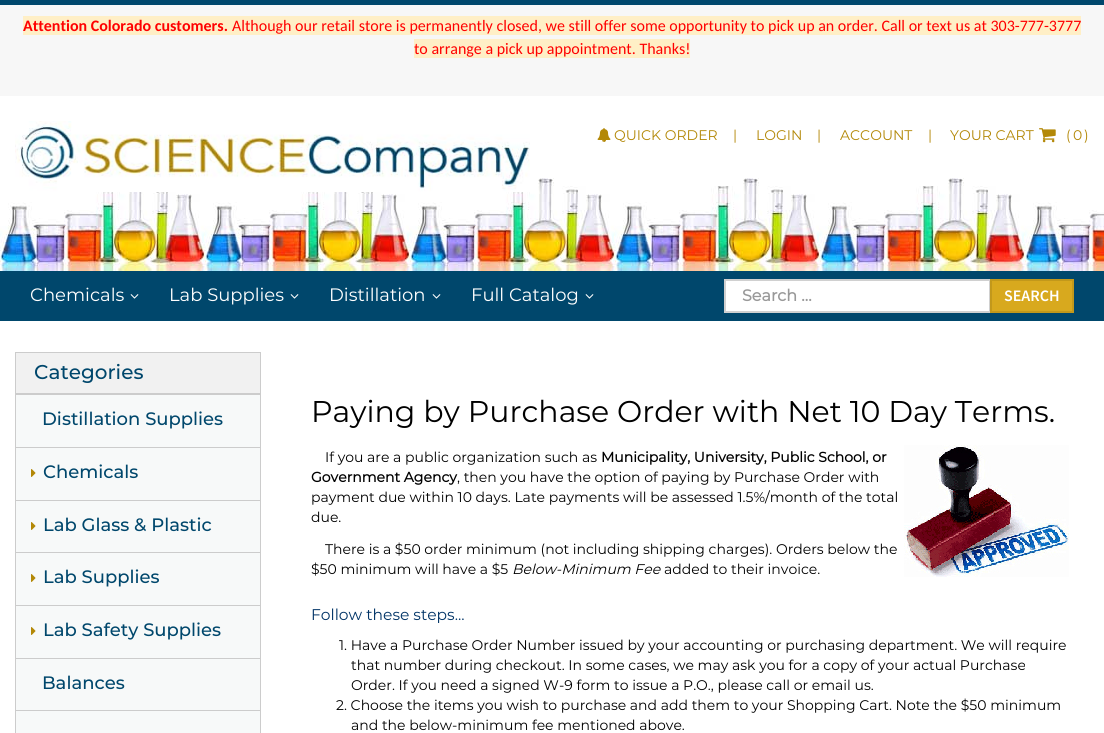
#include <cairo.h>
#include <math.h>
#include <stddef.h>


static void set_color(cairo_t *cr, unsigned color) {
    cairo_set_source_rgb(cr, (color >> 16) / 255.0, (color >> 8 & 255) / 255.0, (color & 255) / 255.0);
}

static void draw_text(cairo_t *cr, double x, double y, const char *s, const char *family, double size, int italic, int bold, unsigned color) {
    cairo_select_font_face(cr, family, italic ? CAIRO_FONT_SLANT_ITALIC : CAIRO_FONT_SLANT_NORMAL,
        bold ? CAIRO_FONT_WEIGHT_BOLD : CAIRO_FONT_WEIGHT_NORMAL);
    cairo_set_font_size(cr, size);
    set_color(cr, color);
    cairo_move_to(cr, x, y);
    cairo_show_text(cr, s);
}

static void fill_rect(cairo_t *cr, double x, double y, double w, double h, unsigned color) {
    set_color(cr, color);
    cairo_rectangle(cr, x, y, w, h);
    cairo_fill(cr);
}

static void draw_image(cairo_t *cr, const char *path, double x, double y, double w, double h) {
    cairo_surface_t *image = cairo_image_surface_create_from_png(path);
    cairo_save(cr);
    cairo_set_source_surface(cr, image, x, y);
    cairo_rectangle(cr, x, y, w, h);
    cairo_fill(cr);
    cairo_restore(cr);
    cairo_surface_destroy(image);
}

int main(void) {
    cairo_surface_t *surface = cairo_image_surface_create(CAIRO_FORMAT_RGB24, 1104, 733);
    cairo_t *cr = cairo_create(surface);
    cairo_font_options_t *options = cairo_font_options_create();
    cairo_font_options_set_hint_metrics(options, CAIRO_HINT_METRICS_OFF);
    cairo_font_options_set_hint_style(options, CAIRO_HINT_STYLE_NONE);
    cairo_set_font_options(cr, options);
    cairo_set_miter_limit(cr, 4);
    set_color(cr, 0xFFFFFF);
    cairo_paint(cr);
    fill_rect(cr, 0, 5, 1104, 91, 0xF7F7F7);
    fill_rect(cr, 0, 0, 1104, 5, 0x00476C);
    fill_rect(cr, 23, 16, 1058, 19, 0xFFEFC6);
    draw_text(cr, 23, 31, "Attention Colorado customers.", "Carlito", 16, 0, 1, 0xFF0000);
    draw_text(cr, 232, 31, "Although our retail store is permanently closed, we still offer some opportunity to pick up an order. Call or text us at 303-777-3777", "Carlito", 16, 0, 0, 0xFF0000);
    fill_rect(cr, 414, 39, 276, 19, 0xFFEFC6);
    draw_text(cr, 414, 54, "to arrange a pick up appointment. Thanks!", "Carlito", 16, 0, 0, 0xFF0000);
    draw_image(cr, "assets/img1.png", 0, 178, 1104, 93);
    draw_image(cr, "assets/img2.png", 15, 121, 515, 71);
    draw_image(cr, "assets/img3.png", 597, 128, 14, 14);
    draw_text(cr, 614, 140, "QUICK ORDER", "Montserrat", 14, 0, 0, 0xB38807);
    draw_text(cr, 733, 140, "|", "Montserrat", 14, 0, 0, 0xB38807);
    draw_text(cr, 756, 140, "LOGIN", "Montserrat", 14, 0, 0, 0xB38807);
    draw_text(cr, 817, 140, "|", "Montserrat", 14, 0, 0, 0xB38807);
    draw_text(cr, 840, 140, "ACCOUNT", "Montserrat", 14, 0, 0, 0xB38807);
    draw_text(cr, 928, 140, "|", "Montserrat", 14, 0, 0, 0xB38807);
    draw_text(cr, 950, 140, "YOUR CART", "Montserrat", 14, 0, 0, 0xB38807);
    draw_image(cr, "assets/img4.png", 1039, 128, 17, 15);
    draw_text(cr, 1066, 140, "(", "Montserrat", 14, 0, 0, 0xB38807);
    draw_text(cr, 1073, 140, "0", "Montserrat", 14, 0, 0, 0xB38807);
    draw_text(cr, 1084, 140, ")", "Montserrat", 14, 0, 0, 0xB38807);
    fill_rect(cr, 0, 271, 1104, 50, 0x00476C);
    draw_text(cr, 30, 301, "Chemicals", "Montserrat", 18, 0, 0, 0xFFFFFF);
    draw_image(cr, "assets/img5.png", 130, 294, 9, 5);
    draw_text(cr, 169, 301, "Lab Supplies", "Montserrat", 18, 0, 0, 0xFFFFFF);
    draw_image(cr, "assets/img5.png", 290, 294, 9, 5);
    draw_text(cr, 329, 301, "Distillation", "Montserrat", 18, 0, 0, 0xFFFFFF);
    draw_image(cr, "assets/img5.png", 432, 294, 9, 5);
    draw_text(cr, 471, 301, "Full Catalog", "Montserrat", 18, 0, 0, 0xFFFFFF);
    draw_image(cr, "assets/img5.png", 585, 294, 9, 5);
    cairo_rectangle(cr, 725, 280, 265, 32);
    cairo_fill_preserve(cr);
    set_color(cr, 0xD0D0D0);
    cairo_stroke(cr);
    draw_text(cr, 742, 301, "Search ...", "Montserrat", 16, 0, 1, 0x999999);
    set_color(cr, 0xD8A91E);
    cairo_rectangle(cr, 991, 280, 82, 32);
    cairo_fill_preserve(cr);
    set_color(cr, 0xC2981B);
    cairo_stroke(cr);
    draw_text(cr, 1004, 301, "SEARCH", "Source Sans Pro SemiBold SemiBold", 16, 0, 0, 0xFFFFFF);
    cairo_rectangle(cr, 15.5, 352.5, 245, 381);
    set_color(cr, 0xCCCCCC);
    cairo_set_line_width(cr, 1);
    cairo_stroke(cr);
    fill_rect(cr, 16, 353, 244, 40, 0xF1F1F1);
    fill_rect(cr, 16, 393, 244, 2, 0xCCCCCC);
    draw_text(cr, 34, 379, "Categories", "Montserrat Medium", 20, 0, 0, 0x00476C);
    fill_rect(cr, 16, 395, 244, 52, 0xF7F9F9);
    draw_text(cr, 42, 425, "Distillation Supplies", "Montserrat Medium", 18, 0, 0, 0x00476C);
    fill_rect(cr, 16, 448, 244, 52, 0xF7F9F9);
    fill_rect(cr, 16, 447, 244, 1, 0xCCCCCC);
    draw_image(cr, "assets/img6.png", 31, 469, 5, 8);
    draw_text(cr, 43, 478, "Chemicals", "Montserrat Medium", 18, 0, 0, 0x00476C);
    fill_rect(cr, 16, 501, 244, 51, 0xF7F9F9);
    fill_rect(cr, 16, 500, 244, 1, 0xCCCCCC);
    draw_image(cr, "assets/img6.png", 31, 522, 5, 8);
    draw_text(cr, 43, 531, "Lab Glass & Plastic", "Montserrat Medium", 18, 0, 0, 0x00476C);
    fill_rect(cr, 16, 553, 244, 52, 0xF7F9F9);
    fill_rect(cr, 16, 552, 244, 1, 0xCCCCCC);
    draw_image(cr, "assets/img6.png", 31, 574, 5, 8);
    draw_text(cr, 43, 583, "Lab Supplies", "Montserrat Medium", 18, 0, 0, 0x00476C);
    fill_rect(cr, 16, 606, 244, 52, 0xF7F9F9);
    fill_rect(cr, 16, 605, 244, 1, 0xCCCCCC);
    draw_image(cr, "assets/img6.png", 31, 627, 5, 8);
    draw_text(cr, 43, 636, "Lab Safety Supplies", "Montserrat Medium", 18, 0, 0, 0x00476C);
    fill_rect(cr, 16, 659, 244, 51, 0xF7F9F9);
    fill_rect(cr, 16, 658, 244, 1, 0xCCCCCC);
    draw_text(cr, 42, 689, "Balances", "Montserrat Medium", 18, 0, 0, 0x00476C);
    fill_rect(cr, 16, 711, 244, 22, 0xF7F9F9);
    fill_rect(cr, 16, 710, 244, 1, 0xCCCCCC);
    draw_text(cr, 311, 422, "Paying by Purchase Order with Net 10 Day Terms.", "Montserrat", 30, 0, 0, 0x000000);
    draw_text(cr, 325, 462, "If you are a public organization such as", "Montserrat", 14, 0, 0, 0x000000);
    draw_text(cr, 601, 462, "Municipality, University, Public School, or", "Montserrat", 14, 0, 1, 0x000000);
    draw_text(cr, 311, 482, "Government Agency", "Montserrat", 14, 0, 1, 0x000000);
    draw_text(cr, 457, 482, ", then you have the option of paying by Purchase Order with", "Montserrat", 14, 0, 0, 0x000000);
    draw_text(cr, 311, 502, "payment due within 10 days. Late payments will be assessed 1.5%/month of the total", "Montserrat", 14, 0, 0, 0x000000);
    draw_text(cr, 311, 522, "due.", "Montserrat", 14, 0, 0, 0x000000);
    draw_image(cr, "assets/img7.png", 904, 445, 165, 132);
    draw_text(cr, 325, 554, "There is a $50 order minimum (not including shipping charges). Orders below the", "Montserrat", 14, 0, 0, 0x000000);
    draw_text(cr, 311, 574, "$50 minimum will have a $5", "Montserrat", 14, 0, 0, 0x000000);
    draw_text(cr, 512, 574, "Below-Minimum Fee", "Montserrat", 14, 1, 0, 0x000000);
    draw_text(cr, 664, 574, "added to their invoice.", "Montserrat", 14, 0, 0, 0x000000);
    draw_text(cr, 311, 620, "Follow these steps...", "Montserrat", 15.5, 0, 0, 0x003366);
    draw_text(cr, 339, 650, "1. Have a Purchase Order Number issued by your accounting or purchasing department. We will require", "Montserrat", 14, 0, 0, 0x000000);
    draw_text(cr, 351, 670, "that number during checkout. In some cases, we may ask you for a copy of your actual Purchase", "Montserrat", 14, 0, 0, 0x000000);
    draw_text(cr, 351, 690, "Order. If you need a signed W-9 form to issue a P.O., please call or email us.", "Montserrat", 14, 0, 0, 0x000000);
    draw_text(cr, 336, 710, "2. Choose the items you wish to purchase and add them to your Shopping Cart. Note the $50 minimum", "Montserrat", 14, 0, 0, 0x000000);
    draw_text(cr, 351, 730, "and the below-minimum fee mentioned above.", "Montserrat", 14, 0, 0, 0x000000);
    cairo_surface_write_to_png(surface, "output.png");
    cairo_font_options_destroy(options);
    cairo_destroy(cr);
    cairo_surface_destroy(surface);
    return 0;
}
